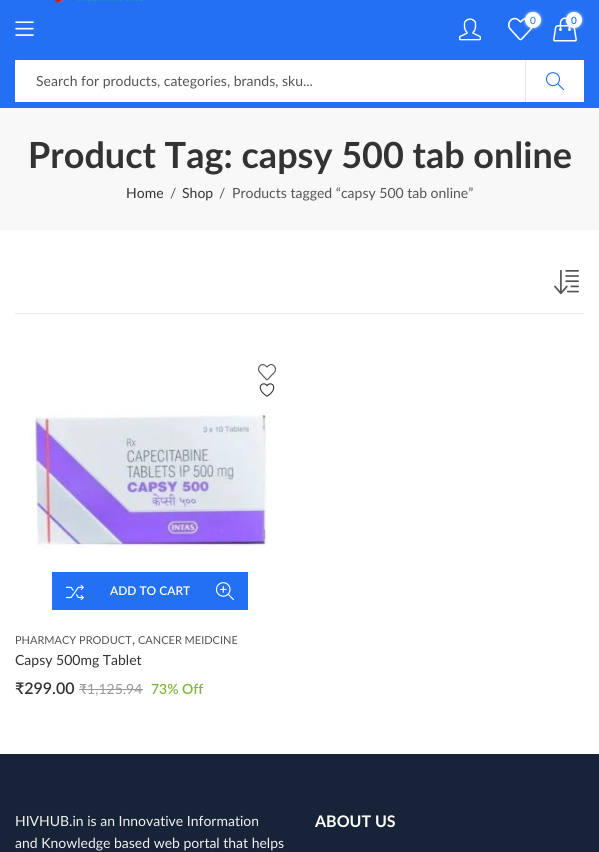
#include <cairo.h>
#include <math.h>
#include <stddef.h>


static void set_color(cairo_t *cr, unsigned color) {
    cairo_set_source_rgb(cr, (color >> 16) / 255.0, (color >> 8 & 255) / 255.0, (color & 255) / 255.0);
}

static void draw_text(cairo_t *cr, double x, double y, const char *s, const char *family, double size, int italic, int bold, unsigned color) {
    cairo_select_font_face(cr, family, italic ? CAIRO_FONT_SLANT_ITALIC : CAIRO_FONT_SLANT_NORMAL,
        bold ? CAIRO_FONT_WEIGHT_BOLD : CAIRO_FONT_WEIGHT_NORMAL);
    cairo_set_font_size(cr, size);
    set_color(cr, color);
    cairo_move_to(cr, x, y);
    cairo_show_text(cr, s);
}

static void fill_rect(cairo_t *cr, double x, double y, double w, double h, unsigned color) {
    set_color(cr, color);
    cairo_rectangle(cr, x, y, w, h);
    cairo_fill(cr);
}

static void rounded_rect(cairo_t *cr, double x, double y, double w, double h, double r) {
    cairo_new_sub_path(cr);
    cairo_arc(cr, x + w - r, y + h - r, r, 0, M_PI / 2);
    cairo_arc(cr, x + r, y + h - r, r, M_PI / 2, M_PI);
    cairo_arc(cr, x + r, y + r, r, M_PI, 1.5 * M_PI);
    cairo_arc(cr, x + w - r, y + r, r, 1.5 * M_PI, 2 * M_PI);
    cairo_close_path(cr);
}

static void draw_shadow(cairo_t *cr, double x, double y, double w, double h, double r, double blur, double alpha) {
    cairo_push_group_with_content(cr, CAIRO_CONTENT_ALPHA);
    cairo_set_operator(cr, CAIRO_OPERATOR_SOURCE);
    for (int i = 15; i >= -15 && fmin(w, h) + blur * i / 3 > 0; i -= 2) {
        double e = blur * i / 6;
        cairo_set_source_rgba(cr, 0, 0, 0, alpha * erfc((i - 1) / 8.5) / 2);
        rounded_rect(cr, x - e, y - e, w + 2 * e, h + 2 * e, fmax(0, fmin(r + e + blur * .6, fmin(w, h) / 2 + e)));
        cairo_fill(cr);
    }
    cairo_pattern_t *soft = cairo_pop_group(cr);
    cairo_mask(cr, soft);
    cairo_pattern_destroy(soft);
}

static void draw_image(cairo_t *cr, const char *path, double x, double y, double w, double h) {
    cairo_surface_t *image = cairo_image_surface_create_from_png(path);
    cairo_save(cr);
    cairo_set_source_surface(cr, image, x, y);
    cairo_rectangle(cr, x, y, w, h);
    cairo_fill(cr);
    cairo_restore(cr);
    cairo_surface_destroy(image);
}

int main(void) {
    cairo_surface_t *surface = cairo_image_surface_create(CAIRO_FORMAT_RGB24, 599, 852);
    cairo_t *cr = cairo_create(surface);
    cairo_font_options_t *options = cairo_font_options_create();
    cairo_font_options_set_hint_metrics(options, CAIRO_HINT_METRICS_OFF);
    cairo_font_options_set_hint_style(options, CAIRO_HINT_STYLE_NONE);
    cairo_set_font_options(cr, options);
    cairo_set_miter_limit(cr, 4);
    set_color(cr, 0xFFFFFF);
    cairo_paint(cr);
    fill_rect(cr, 0, 0, 599, 108, 0x2370F4);
    draw_image(cr, "assets/img1.png", 54, 0, 90, 3);
    draw_image(cr, "assets/img2.png", 15, 21, 19, 15);
    draw_image(cr, "assets/img3.png", 459, 18, 22, 23);
    draw_image(cr, "assets/img4.png", 508, 17, 25, 24);
    set_color(cr, 0xFFFFFF);
    draw_shadow(cr, 525, 12, 16, 16, 8, 1.5, 0.7);
    set_color(cr, 0xFFFFFF);
    cairo_arc(cr, 533, 20, 8, 0, 2 * M_PI);
    cairo_fill(cr);
    draw_text(cr, 530, 24, "0", "Lato", 10, 0, 0, 0x2370F4);
    draw_image(cr, "assets/img5.png", 553, 17, 24, 25);
    set_color(cr, 0xFFFFFF);
    draw_shadow(cr, 566, 12, 16, 16, 8, 1.5, 0.7);
    set_color(cr, 0xFFFFFF);
    cairo_arc(cr, 574, 20, 8, 0, 2 * M_PI);
    cairo_fill(cr);
    draw_text(cr, 571, 24, "0", "Lato SemiBold", 10, 0, 0, 0x2370F4);
    fill_rect(cr, 15, 60, 510, 42, 0xFFFFFF);
    fill_rect(cr, 525, 60, 1, 42, 0xE9E9E9);
    draw_text(cr, 36, 86, "Search for products, categories, brands, sku...", "Lato", 14, 0, 0, 0x555555);
    fill_rect(cr, 526, 60, 58, 42, 0xFFFFFF);
    draw_image(cr, "assets/img6.png", 545, 72, 19, 19);
    fill_rect(cr, 0, 108, 599, 122, 0xF8F8F8);
    draw_text(cr, 28, 168, "Product Tag: capsy 500 tab online", "Lato", 36, 0, 1, 0x333333);
    draw_text(cr, 126, 198, "Home", "Lato", 14, 0, 0, 0x333333);
    draw_text(cr, 170, 198, "/", "Lato", 14, 0, 0, 0x555555);
    draw_text(cr, 182, 198, "Shop", "Lato", 14, 0, 0, 0x333333);
    draw_text(cr, 219, 198, "/", "Lato", 14, 0, 0, 0x555555);
    draw_text(cr, 232, 198, "Products tagged “capsy 500 tab online”", "Lato", 14, 0, 0, 0x555555);
    fill_rect(cr, 15, 313, 569, 1, 0xE9E9E9);
    draw_image(cr, "assets/img7.png", 554, 270, 25, 25);
    draw_image(cr, "assets/img8.png", 258, 364, 18, 17);
    draw_image(cr, "assets/img9.png", 259, 383, 16, 14);
    draw_image(cr, "assets/img10.png", 30, 411, 237, 138);
    fill_rect(cr, 52, 572, 196, 38, 0x2370F4);
    draw_image(cr, "assets/img11.png", 66, 584, 18, 17);
    draw_text(cr, 110, 595, "ADD TO CART", "Lato SemiBold", 12, 0, 0, 0xFFFFFF);
    draw_image(cr, "assets/img12.png", 215, 582, 19, 19);
    draw_text(cr, 15, 694, "₹299.00", "Lato SemiBold", 16, 0, 0, 0x333333);
    draw_text(cr, 79, 694, "₹1,125.94", "Lato", 14, 0, 0, 0x999999);
    fill_rect(cr, 79, 689, 64, 1, 0x999999);
    draw_text(cr, 151, 694, "73% Off", "Lato SemiBold", 14, 0, 0, 0x82B440);
    draw_text(cr, 15, 644, "PHARMACY PRODUCT", "Lato", 11, 0, 0, 0x555555);
    draw_text(cr, 132, 644, ",", "Lato", 14, 0, 0, 0x555555);
    draw_text(cr, 138, 644, "CANCER MEIDCINE", "Lato", 11, 0, 0, 0x555555);
    draw_text(cr, 15, 665, "Capsy 500mg Tablet", "Lato", 14, 0, 0, 0x333333);
    fill_rect(cr, 0, 754, 599, 98, 0x172337);
    draw_text(cr, 15, 826, "HIVHUB.in is an Innovative Information", "Lato", 14, 0, 0, 0xF1F1F1);
    draw_text(cr, 15, 848, "and Knowledge based web portal that helps", "Lato", 14, 0, 0, 0xF1F1F1);
    draw_text(cr, 315, 827, "ABOUT US", "Lato", 16, 0, 1, 0xFFFFFF);
    cairo_surface_write_to_png(surface, "output.png");
    cairo_font_options_destroy(options);
    cairo_destroy(cr);
    cairo_surface_destroy(surface);
    return 0;
}
